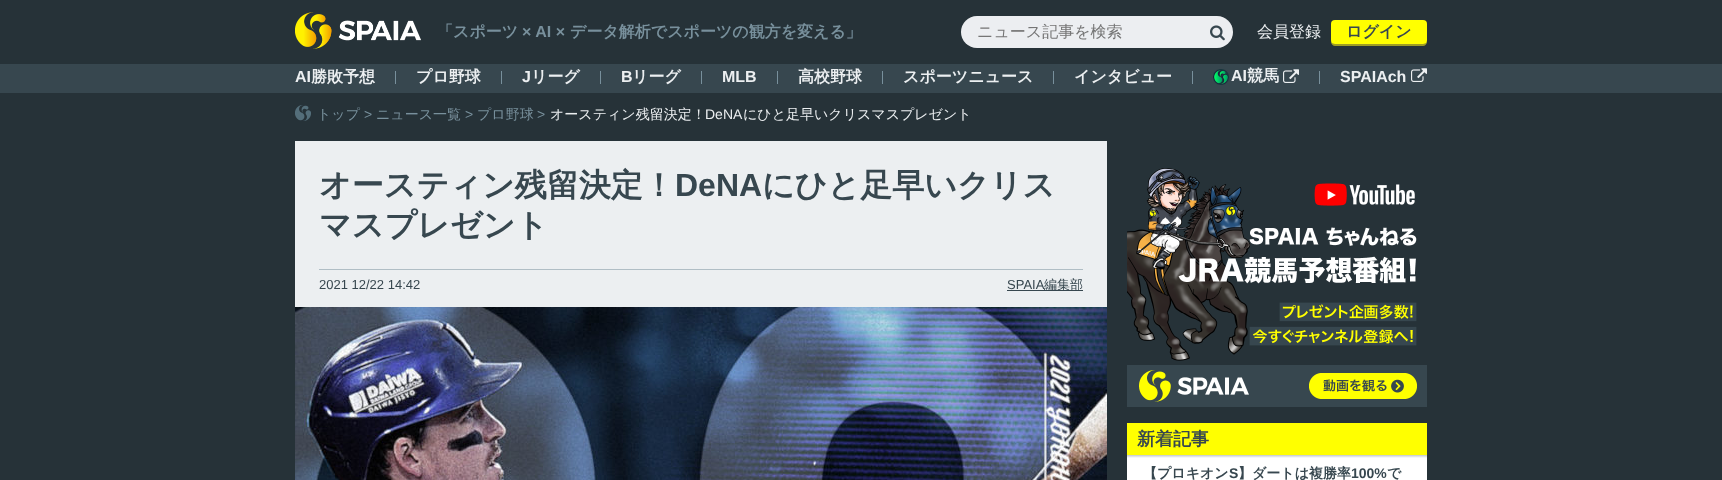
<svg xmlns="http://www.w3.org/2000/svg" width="1722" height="480">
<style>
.a{font:bold 16px WenQuanYi Zen Hei;fill:#78909c}
.b{font:bold 16px Liberation Sans;fill:#78909c}
.c{font:500 16px WenQuanYi Zen Hei;fill:#757575}
.d{font:500 16px WenQuanYi Zen Hei;fill:#eceff1}
.e{font:bold 16px WenQuanYi Zen Hei;fill:#37474f}
.f{font:bold 16px Liberation Sans;fill:#eceff1}
.g{font:bold 16px WenQuanYi Zen Hei;fill:#eceff1}
.h{font:500 14px WenQuanYi Zen Hei;fill:#78909c}
.i{font:14px Liberation Sans;fill:#78909c}
.j{font:500 14px WenQuanYi Zen Hei;fill:#eceff1}
.k{font:14px Liberation Sans;fill:#eceff1}
.l{font:bold 32px WenQuanYi Zen Hei;fill:#37474f}
.m{font:bold 32px Liberation Sans;fill:#37474f}
.n{font:13px Liberation Sans;fill:#37474f}
.o{font:500 13px WenQuanYi Zen Hei;fill:#37474f}
.p{font:bold 18px WenQuanYi Zen Hei;fill:#37474f}
.q{font:bold 14px WenQuanYi Zen Hei;fill:#37474f}
.r{font:bold 14px Liberation Sans;fill:#37474f}
</style>
<defs>
<linearGradient id="g1" gradientUnits="userSpaceOnUse" x1="1277" y1="458" x2="1277" y2="455"><stop offset="0" stop-color="#fff"/><stop offset="1" stop-color="#c3c8ca"/></linearGradient>
</defs>
<rect width="100%" height="100%" fill="#263238"/>
<path fill="#37474f" d="M0 64h1722v29H0z"/>
<image href="1.png" x="295" y="12" width="126" height="37"/>
<rect fill="#eceef1" x="961" y="16" width="272" height="32" rx="16"/>
<image href="2.png" x="1210" y="25" width="15" height="16"/>
<path fill="#9e9d24" d="M1331 40v2c0 2 2 4 4 4h88c2 0 4-2 4-4v-2c0 2-2 4-4 4h-88c-2 0-4-2-4-4z"/>
<rect fill="#ff0" x="1331" y="20" width="96" height="24" rx="4"/>
<path fill="#78909c" d="M395 71h1v13H395z"/>
<path fill="#78909c" d="M501 71h1v13H501z"/>
<path fill="#78909c" d="M600 71h1v13H600z"/>
<path fill="#78909c" d="M701 71h1v13H701z"/>
<path fill="#78909c" d="M777 71h1v13H777z"/>
<path fill="#78909c" d="M882 71h1v13H882z"/>
<path fill="#78909c" d="M1053 71h1v13H1053z"/>
<path fill="#78909c" d="M1192 71h1v13H1192z"/>
<image href="3.png" x="1213" y="69" width="16" height="16"/>
<image href="4.png" x="1283" y="69" width="16" height="14"/>
<path fill="#78909c" d="M1319 71h1v13H1319z"/>
<image href="4.png" x="1411" y="68" width="16" height="14"/>
<image href="5.png" x="295" y="105" width="16" height="16"/>
<path fill="#eceff1" d="M295 141h812v166H295z"/>
<path fill="#b0bec5" d="M319 269h764v1H319z"/>
<path fill="#37474f" d="M1007 290h76v1H1007z"/>
<image href="6.png" x="295" y="307" width="812" height="173"/>
<image href="7.png" x="1127" y="168" width="300" height="239"/>
<path fill="#fff" d="M1127 458h300v22H1127z"/>
<path fill="#ff0" d="M1127 423h300v32H1127z"/>
<path fill="url(#g1)" d="M1127 455h300v3H1127z"/>
<text class="a" x="437" y="37">「スポーツ</text>
<text class="b" x="522" y="37">× AI ×</text>
<text class="a" x="570" y="37">データ解析でスポーツの観方を変える」</text>
<text class="c" x="977" y="37">ニュース記事を検索</text>
<text class="d" x="1257" y="37">会員登録</text>
<text class="e" x="1346" y="37">ログイン</text>
<text class="f" x="295" y="82">AI</text>
<text class="g" x="311" y="82">勝敗予想</text>
<text class="g" x="416" y="82">プロ野球</text>
<text class="f" x="522" y="82">J</text>
<text class="g" x="531" y="82">リーグ</text>
<text class="f" x="621" y="82">B</text>
<text class="g" x="632" y="82">リーグ</text>
<text class="f" x="722" y="82">MLB</text>
<text class="g" x="798" y="82">高校野球</text>
<text class="g" x="903" y="82">スポーツニュース</text>
<text class="g" x="1074" y="82">インタビュー</text>
<text class="f" x="1231" y="81">AI</text>
<text class="g" x="1247" y="81">競馬</text>
<text class="f" x="1340" y="82">SPAIAch</text>
<text class="h" x="317" y="119">トップ</text>
<text class="i" x="364" y="119">&gt;</text>
<text class="h" x="376" y="119">ニュース一覧</text>
<text class="i" x="465" y="119">&gt;</text>
<text class="h" x="477" y="119">プロ野球</text>
<text class="i" x="537" y="119">&gt;</text>
<text class="j" x="550" y="119">オースティン残留決定！</text>
<text class="k" x="705" y="119">DeNA</text>
<text class="j" x="743" y="119">にひと足早いクリスマスプレゼント</text>
<text class="l" x="319" y="196">オースティン残留決定！</text>
<text class="m" x="675" y="196">DeNA</text>
<text class="l" x="762" y="196">にひと足早いクリス</text>
<text class="l" x="319" y="236">マスプレゼント</text>
<text class="n" x="319" y="289">2021 12/22 14:42</text>
<text class="n" x="1007" y="289">SPAIA</text>
<text class="o" x="1044" y="289">編集部</text>
<text class="p" x="1137" y="445">新着記事</text>
<text class="q" x="1143" y="478">【プロキオン</text>
<text class="r" x="1229" y="478">S</text>
<text class="q" x="1238" y="478">】ダートは複勝率</text>
<text class="r" x="1351" y="478">100%</text>
<text class="q" x="1387" y="478">で</text>
</svg>
